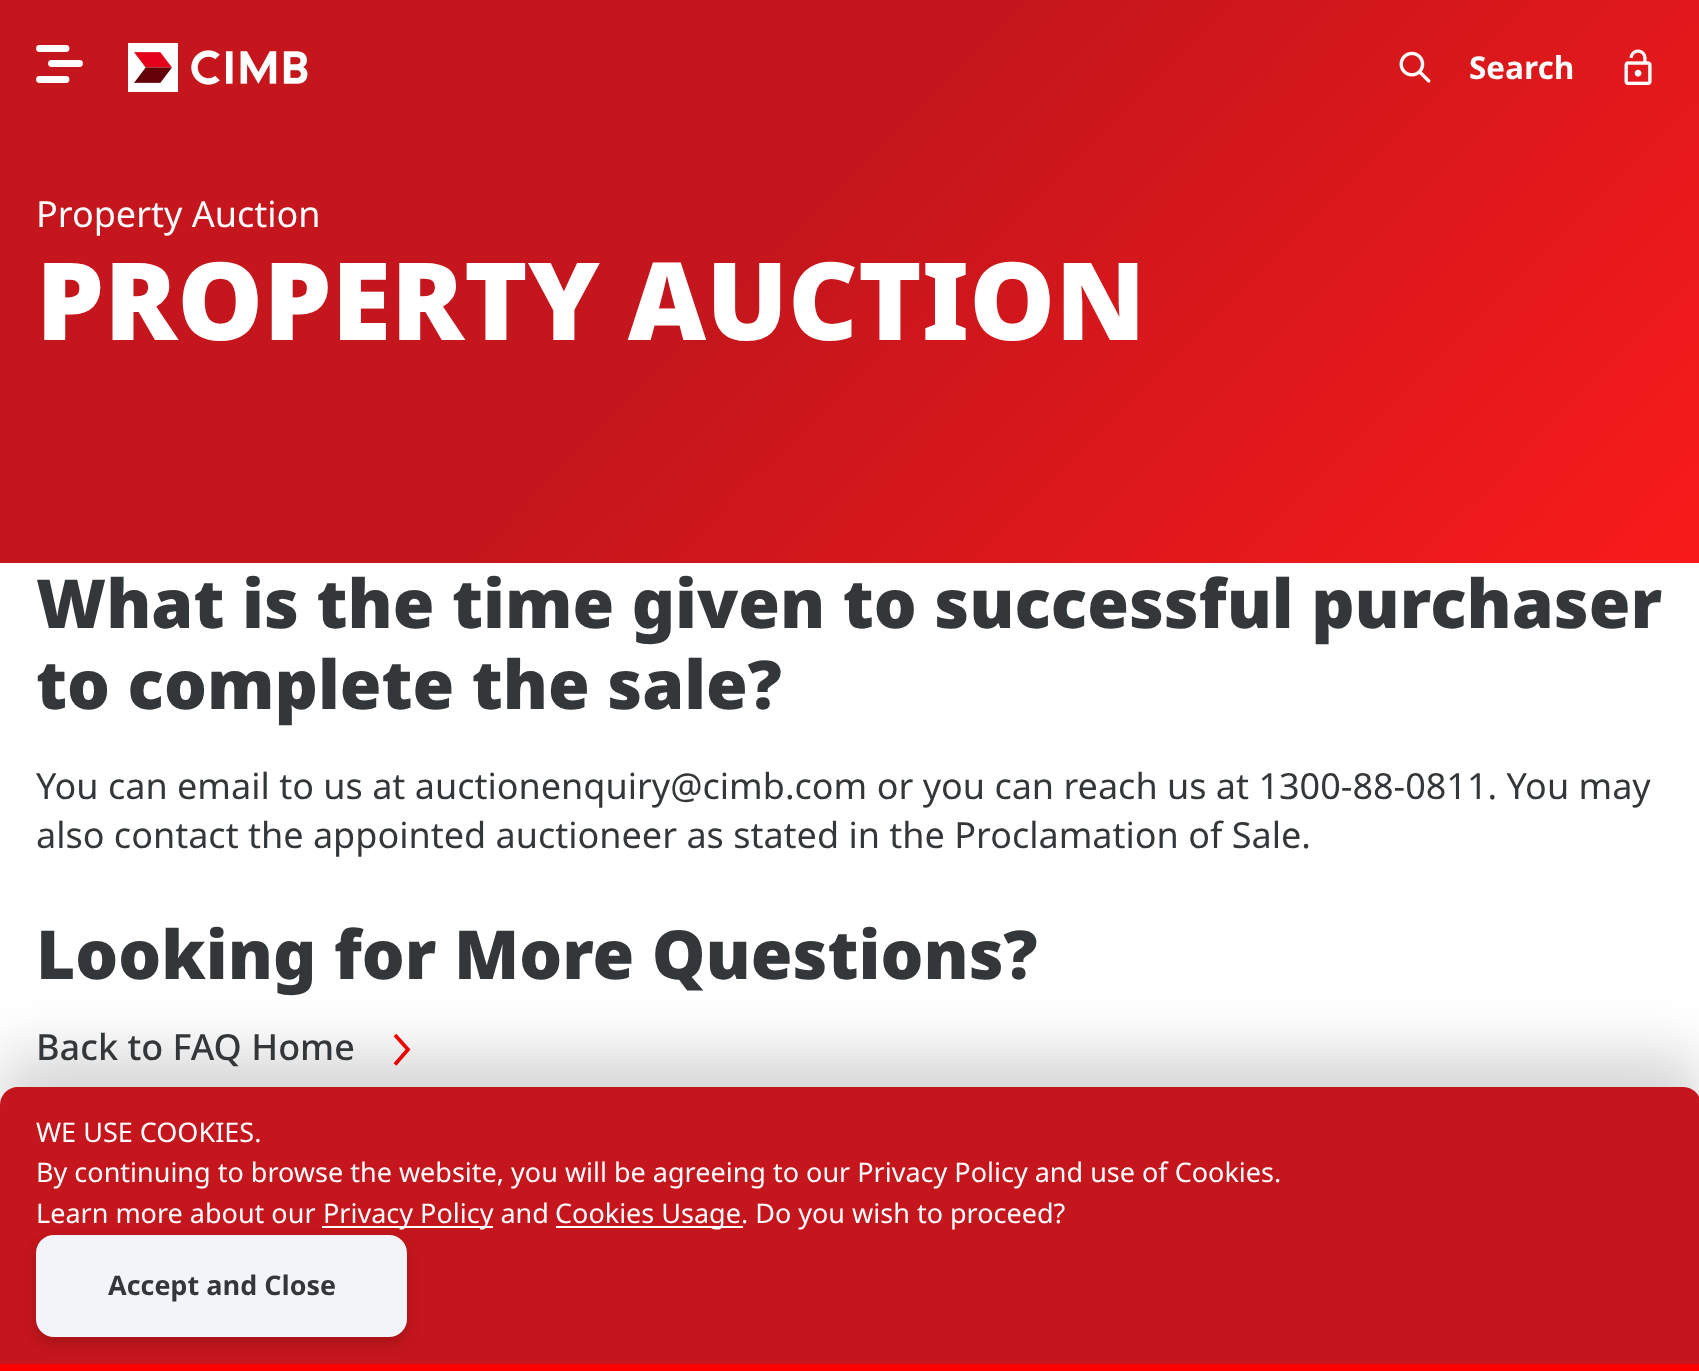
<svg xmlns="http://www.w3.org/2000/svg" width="1699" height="1371">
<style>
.a{font:bold 31.5px Noto Sans;fill:#fff}
.b{font:36px Noto Sans;fill:#fff}
.c{font:900 108px Noto Sans;fill:#fff}
.d{font:900 67.5px Noto Sans;fill:#333739}
.e{font:36px Noto Sans;fill:#333739}
.f{font:500 36px Noto Sans;fill:#333739}
.g{font:27px Noto Sans;fill:#fff}
.h{font:bold 27px Noto Sans;fill:#333739}
</style>
<defs>
<linearGradient id="g1" gradientUnits="userSpaceOnUse" x1="1473" y1="904" x2="285" y2="-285"><stop offset="0" stop-color="#fe1b1b"/><stop offset="0.57" stop-color="#c4161c"/></linearGradient>
</defs>
<rect width="100%" height="100%" fill="#fff"/>
<path fill="url(#g1)" d="M0 0h1699v563H0z"/>
<path fill="none" stroke="#fff" stroke-width="6.8" stroke-linecap="round" d="M51.5 63.5h28m-13.5 16h-26.5m26.5-31h-26.5"/>
<image href="1.png" x="128" y="43" width="180" height="49"/>
<image href="2.png" x="1399" y="51" width="32" height="32"/>
<image href="3.png" x="1624" y="49" width="28" height="36"/>
<path fill="none" stroke="#f00" stroke-width="3.7" d="M395 1064.5l13-15l-13-14.5"/>
<rect fill="#00000029" filter="blur(28px)" y="1053" width="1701" height="286" rx="18"/>
<path fill="#c4161c" d="M18 1087h1665c10 0 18 8 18 18v259h-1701v-259c0-10 8-18 18-18z"/>
<path fill="#f00" d="M0 1364h1699v7H0z"/>
<path fill="#fff" d="M322 1226h171v2H322z"/>
<path fill="#fff" d="M556 1226h187v2H556z"/>
<rect fill="#00000029" filter="blur(7px)" x="36" y="1242" width="371" height="101" rx="18"/>
<rect fill="#f3f4fa" x="36" y="1235" width="371" height="102" rx="18"/>
<text class="a" x="1469" y="79">Search</text>
<text class="b" x="36" y="227">Property Auction</text>
<text class="c" x="36" y="340">PROPERTY AUCTION</text>
<text class="d" x="36" y="628">What is the time given to successful purchaser</text>
<text class="d" x="36" y="709">to complete the sale?</text>
<text class="e" x="36" y="799">You can email to us at auctionenquiry@cimb.com or you can reach us at 1300-88-0811. You may</text>
<text class="e" x="36" y="848">also contact the appointed auctioneer as stated in the Proclamation of Sale.</text>
<text class="d" x="36" y="979">Looking for More Questions?</text>
<text class="f" x="36" y="1060">Back to FAQ Home</text>
<text class="g" x="36" y="1142">WE USE COOKIES.</text>
<text class="g" x="36" y="1182">By continuing to browse the website, you will be agreeing to our Privacy Policy and use of Cookies.</text>
<text class="g" x="36" y="1223">Learn more about our</text>
<text class="g" x="323" y="1223">Privacy Policy and</text>
<text class="g" x="555" y="1223">Cookies Usage. Do you wish to proceed?</text>
<text class="h" x="108" y="1295">Accept and Close</text>
</svg>
